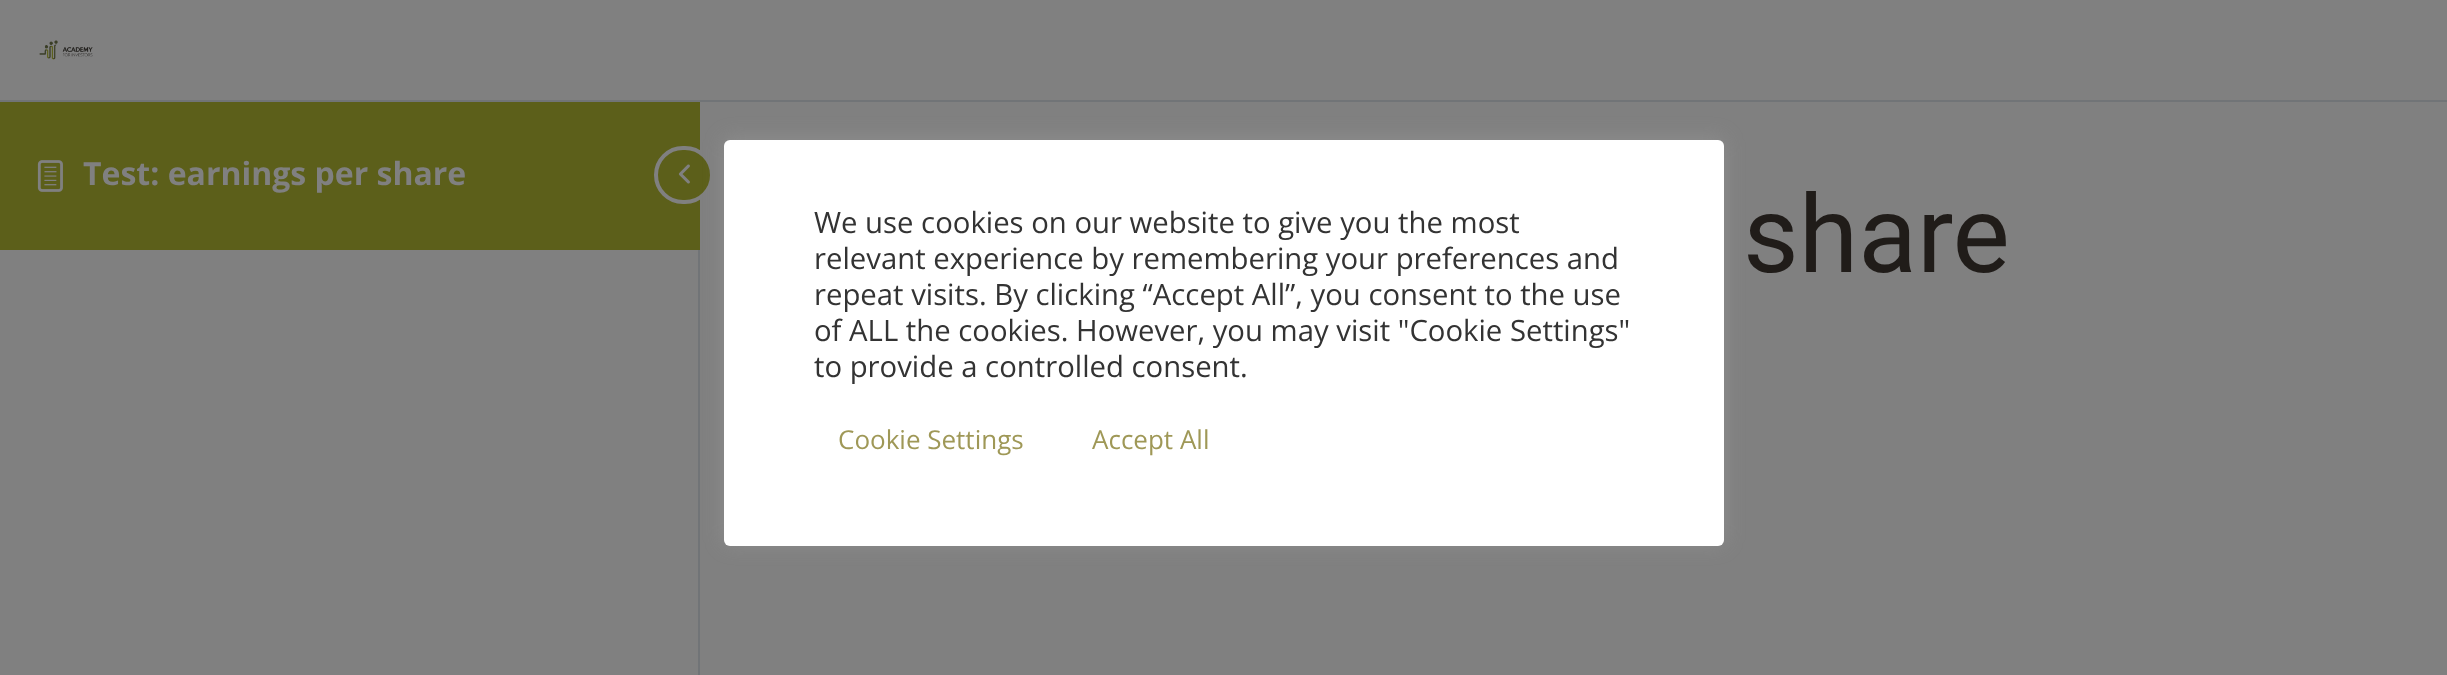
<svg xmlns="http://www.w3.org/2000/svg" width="2447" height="675">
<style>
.a{font:bold 32px Open Sans;fill:#808080}
.b{font:108px Roboto;fill:#201c19}
.c{font:29.3px Open Sans;fill:#333}
.d{font:26px Open Sans;fill:#9f9857}
</style>
<rect width="100%" height="100%" fill="#808080"/>
<path fill="#717477" d="M698 250h2v425H698z"/>
<path fill="#5c5f1a" d="M0 102h700v148H0z"/>
<image href="1.png" x="37" y="160" width="26" height="32"/>
<rect fill="#5c5f1a" stroke="#808080" stroke-width="4" x="656" y="148" width="56" height="54" rx="27"/>
<image href="2.png" x="678" y="164" width="12" height="20"/>
<path fill="#717477" d="M0 100h2447v2H0z"/>
<image href="3.png" x="39" y="40" width="54" height="20"/>
<rect fill="#acabab4d" filter="blur(10px)" x="724" y="138" width="1000" height="406" rx="6"/>
<rect fill="#fff" x="724" y="140" width="1000" height="406" rx="6"/>
<text class="a" x="83" y="185">Test: earnings per share</text>
<text class="b" x="1743" y="272">share</text>
<text class="c" x="814" y="233">We use cookies on our website to give you the most</text>
<text class="c" x="814" y="269">relevant experience by remembering your preferences and</text>
<text class="c" x="814" y="305">repeat visits. By clicking “Accept All”, you consent to the use</text>
<text class="c" x="814" y="341">of ALL the cookies. However, you may visit "Cookie Settings"</text>
<text class="c" x="814" y="377">to provide a controlled consent.</text>
<text class="d" x="838" y="449">Cookie Settings</text>
<text class="d" x="1092" y="449">Accept All</text>
</svg>
